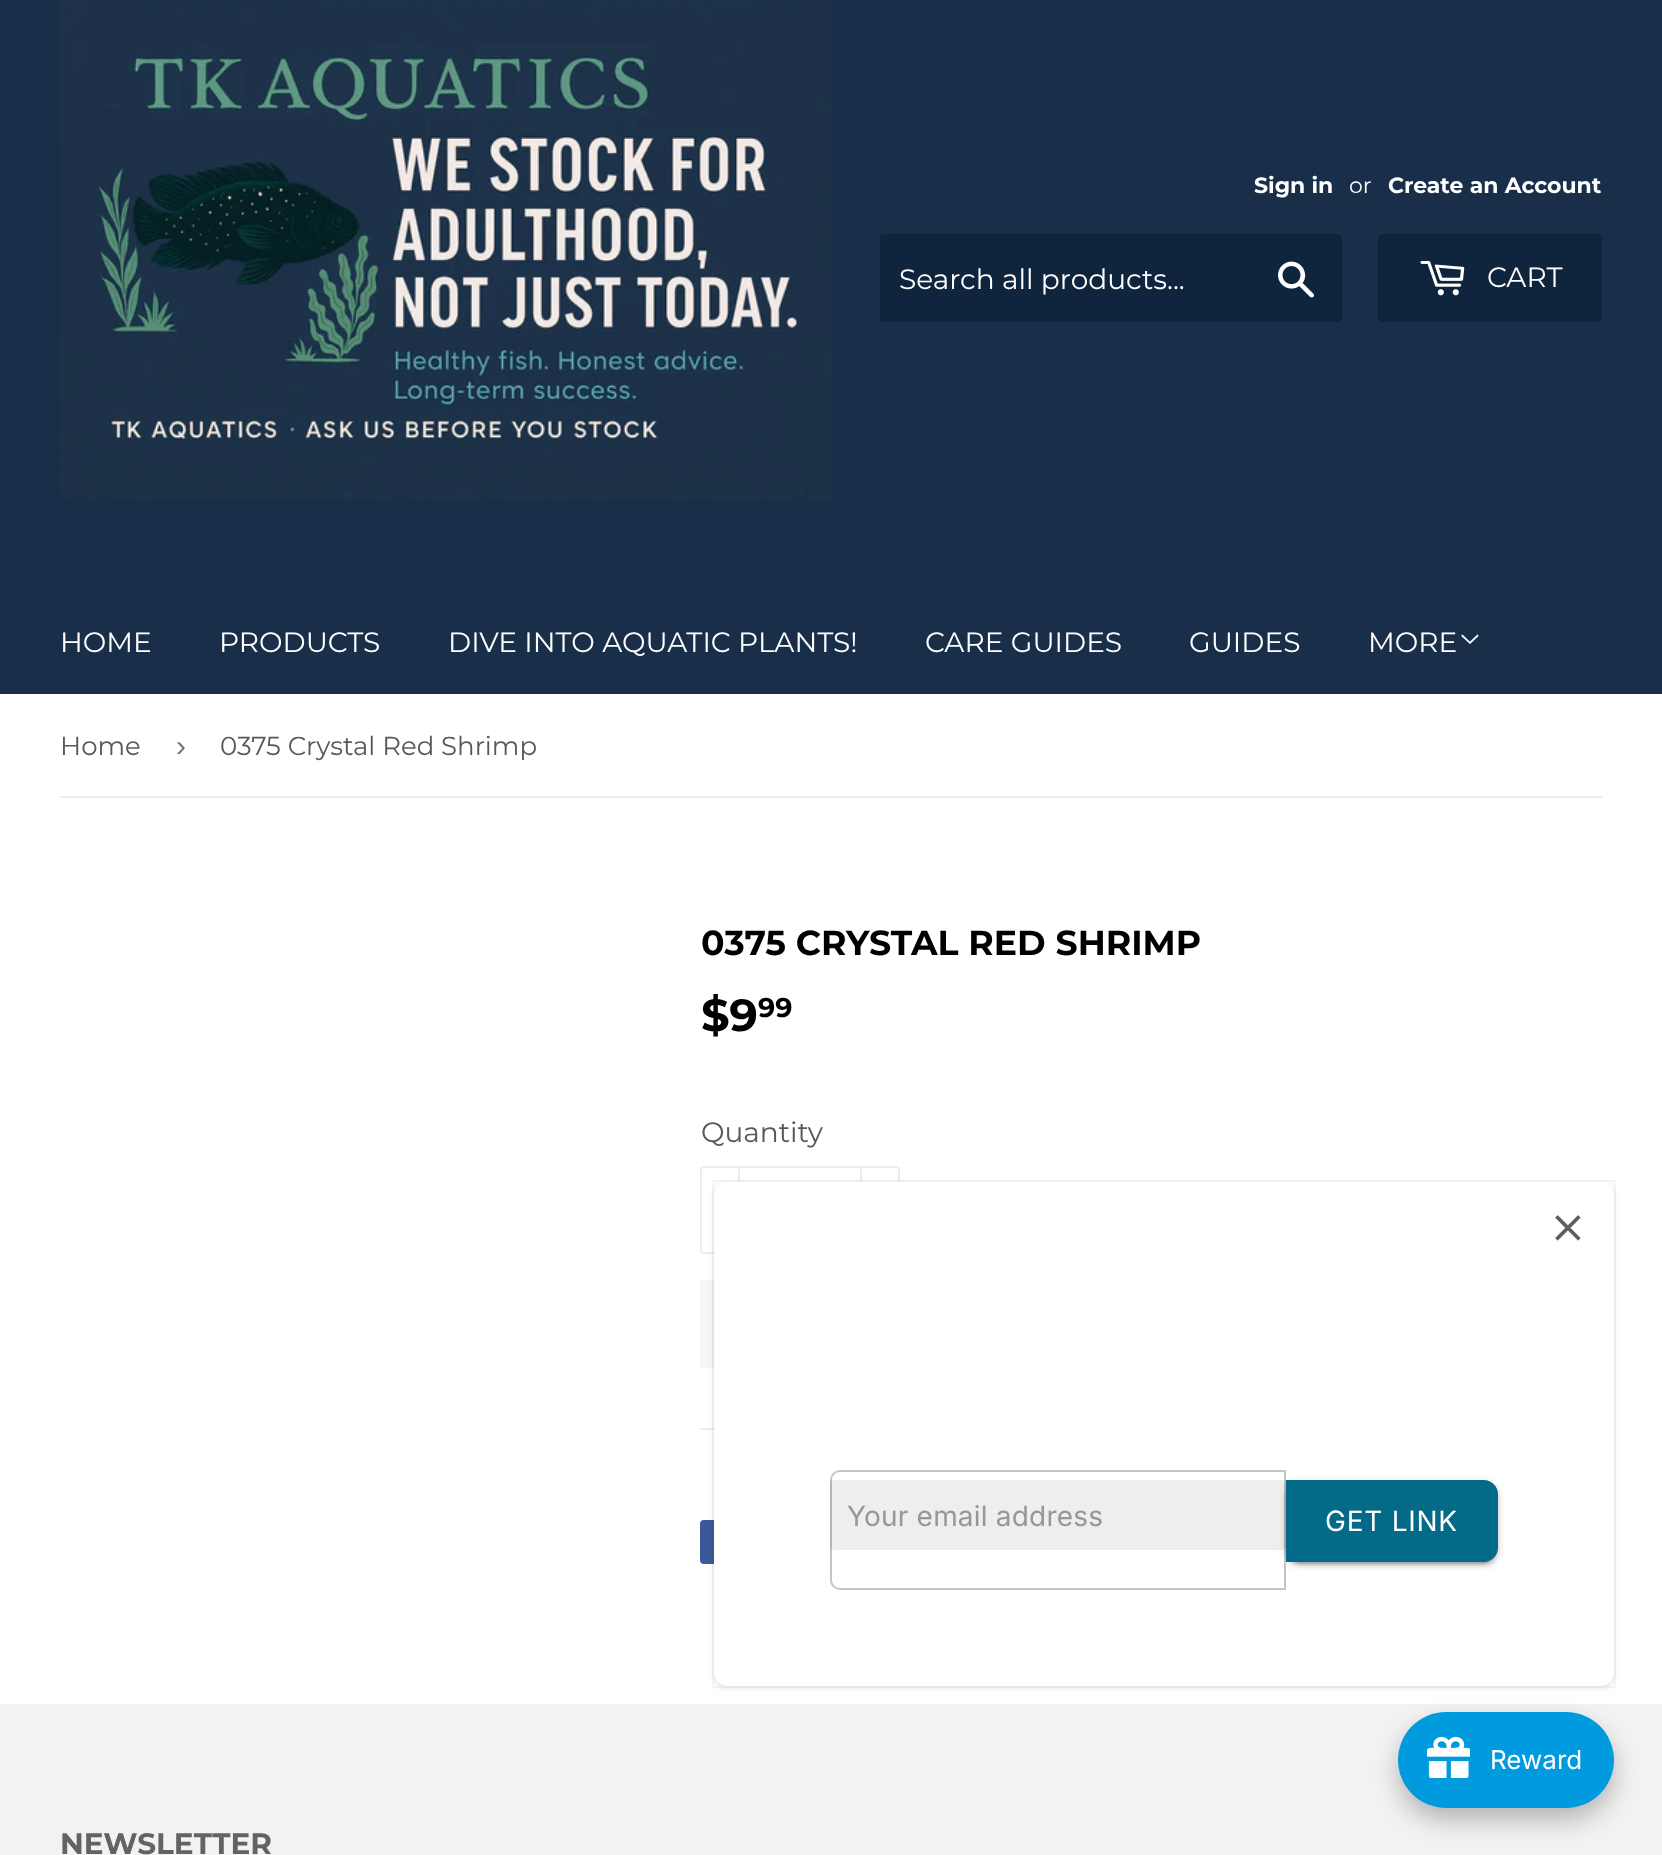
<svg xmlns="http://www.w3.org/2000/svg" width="1662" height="1855">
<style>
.a{font:bold 22px Montserrat;fill:#fff}
.b{font:22px Montserrat;fill:#fff}
.c{font:28px Montserrat;fill:#fff}
.d{font:26px Montserrat;fill:#585858}
.e{font:30px Liberation Sans;fill:#767676}
.f{font:bold 34.7px Montserrat;fill:#000}
.g{font:bold 45px Montserrat;fill:#000}
.h{font:bold 27px Montserrat;fill:#000}
.i{font:28px Montserrat;fill:#585858}
.j{font:28px Inter;letter-spacing:0.2px;fill:#979797}
.k{font:28px Inter;letter-spacing:0.75px;fill:#fff}
.l{font:26px Inter;fill:#fff}
.m{font:bold 29.5px Montserrat;fill:#636363}
</style>
<rect width="100%" height="100%" fill="#fff"/>
<path fill="#182e49" d="M0 0h1662v694H0z"/>
<image href="1.png" x="60" y="0" width="772" height="500"/>
<rect fill="#0f243d" x="880" y="234" width="462" height="88" rx="4"/>
<image href="2.png" x="1278" y="261" width="36" height="37"/>
<rect fill="#0f243d" x="1378" y="234" width="224" height="88" rx="4"/>
<image href="3.png" x="1420" y="261" width="45" height="35"/>
<image href="4.png" x="1461" y="634" width="18" height="10"/>
<path fill="#ececec" d="M60 796h1542v2H60z"/>
<rect fill="none" stroke="#ececec" stroke-width="2" x="701" y="1167" width="198" height="86" rx="3"/>
<path fill="#ececec" d="M738 1166h2v16H738z"/>
<path fill="#ececec" d="M860 1166h2v16H860z"/>
<rect fill="#f6f6f6" x="700" y="1280" width="302" height="88" rx="4"/>
<path fill="#ececec" d="M700 1428h14v2H700z"/>
<rect fill="#3b5998" x="700" y="1520" width="148" height="44" rx="4"/>
<rect fill="#3f3f4426" filter="blur(3px)" x="714" y="1184" width="900" height="504" rx="14"/>
<path fill="none" stroke="#3f3f440d" stroke-width="2" d="M713 1181h902v506H713z"/>
<rect fill="#fff" x="714" y="1182" width="900" height="504" rx="14"/>
<image href="5.png" x="1555" y="1215" width="26" height="26"/>
<rect fill="#eee" stroke="#ececec" stroke-width="2" x="831" y="1481" width="454" height="68" rx="3"/>
<path fill="none" stroke="#0000003b" stroke-width="2" d="M840 1471h445v118h-445c-5 0-9-4-9-9v-100c0-5 4-9 9-9z"/>
<rect fill="#0000001f" filter="blur(5px)" x="1286" y="1482" width="212" height="82" rx="14"/>
<rect fill="#00000024" filter="blur(2px)" x="1286" y="1484" width="212" height="82" rx="14"/>
<rect fill="#00000033" filter="blur(1px)" x="1290" y="1490" width="204" height="74" rx="10"/>
<path fill="#036b87" d="M1286 1480h198c7.5 0 14 6.5 14 14v54c0 7.5-6.5 14-14 14h-198z"/>
<path fill="#f2f2f2" d="M0 1704h1662v151H0z"/>
<rect fill="#00000040" filter="blur(12px)" x="1398" y="1724" width="216" height="96" rx="48"/>
<rect fill="#009bdf" x="1398" y="1712" width="216" height="96" rx="48"/>
<image href="6.png" x="1427" y="1736" width="43" height="42"/>
<text class="a" x="1254" y="193">Sign in</text>
<text class="b" x="1349" y="193">or</text>
<text class="a" x="1388" y="193">Create an Account</text>
<text class="c" x="899" y="289">Search all products...</text>
<text class="c" x="1487" y="287">CART</text>
<text class="c" x="60" y="652">HOME</text>
<text class="c" x="219" y="652">PRODUCTS</text>
<text class="c" x="448" y="652">DIVE INTO AQUATIC PLANTS!</text>
<text class="c" x="925" y="652">CARE GUIDES</text>
<text class="c" x="1189" y="652">GUIDES</text>
<text class="c" x="1368" y="652">MORE</text>
<text class="d" x="60" y="755">Home</text>
<text class="e" x="176" y="756">›</text>
<text class="d" x="220" y="755">0375 Crystal Red Shrimp</text>
<text class="f" x="701" y="955">0375 CRYSTAL RED SHRIMP</text>
<text class="g" x="701" y="1031">$9</text>
<text class="h" x="758" y="1017">99</text>
<text class="i" x="701" y="1142">Quantity</text>
<text class="j" x="847" y="1526">Your email address</text>
<text class="k" x="1325" y="1531">GET LINK</text>
<text class="l" x="1490" y="1769">Reward</text>
<text class="m" x="60" y="1854">NEWSLETTER</text>
</svg>
